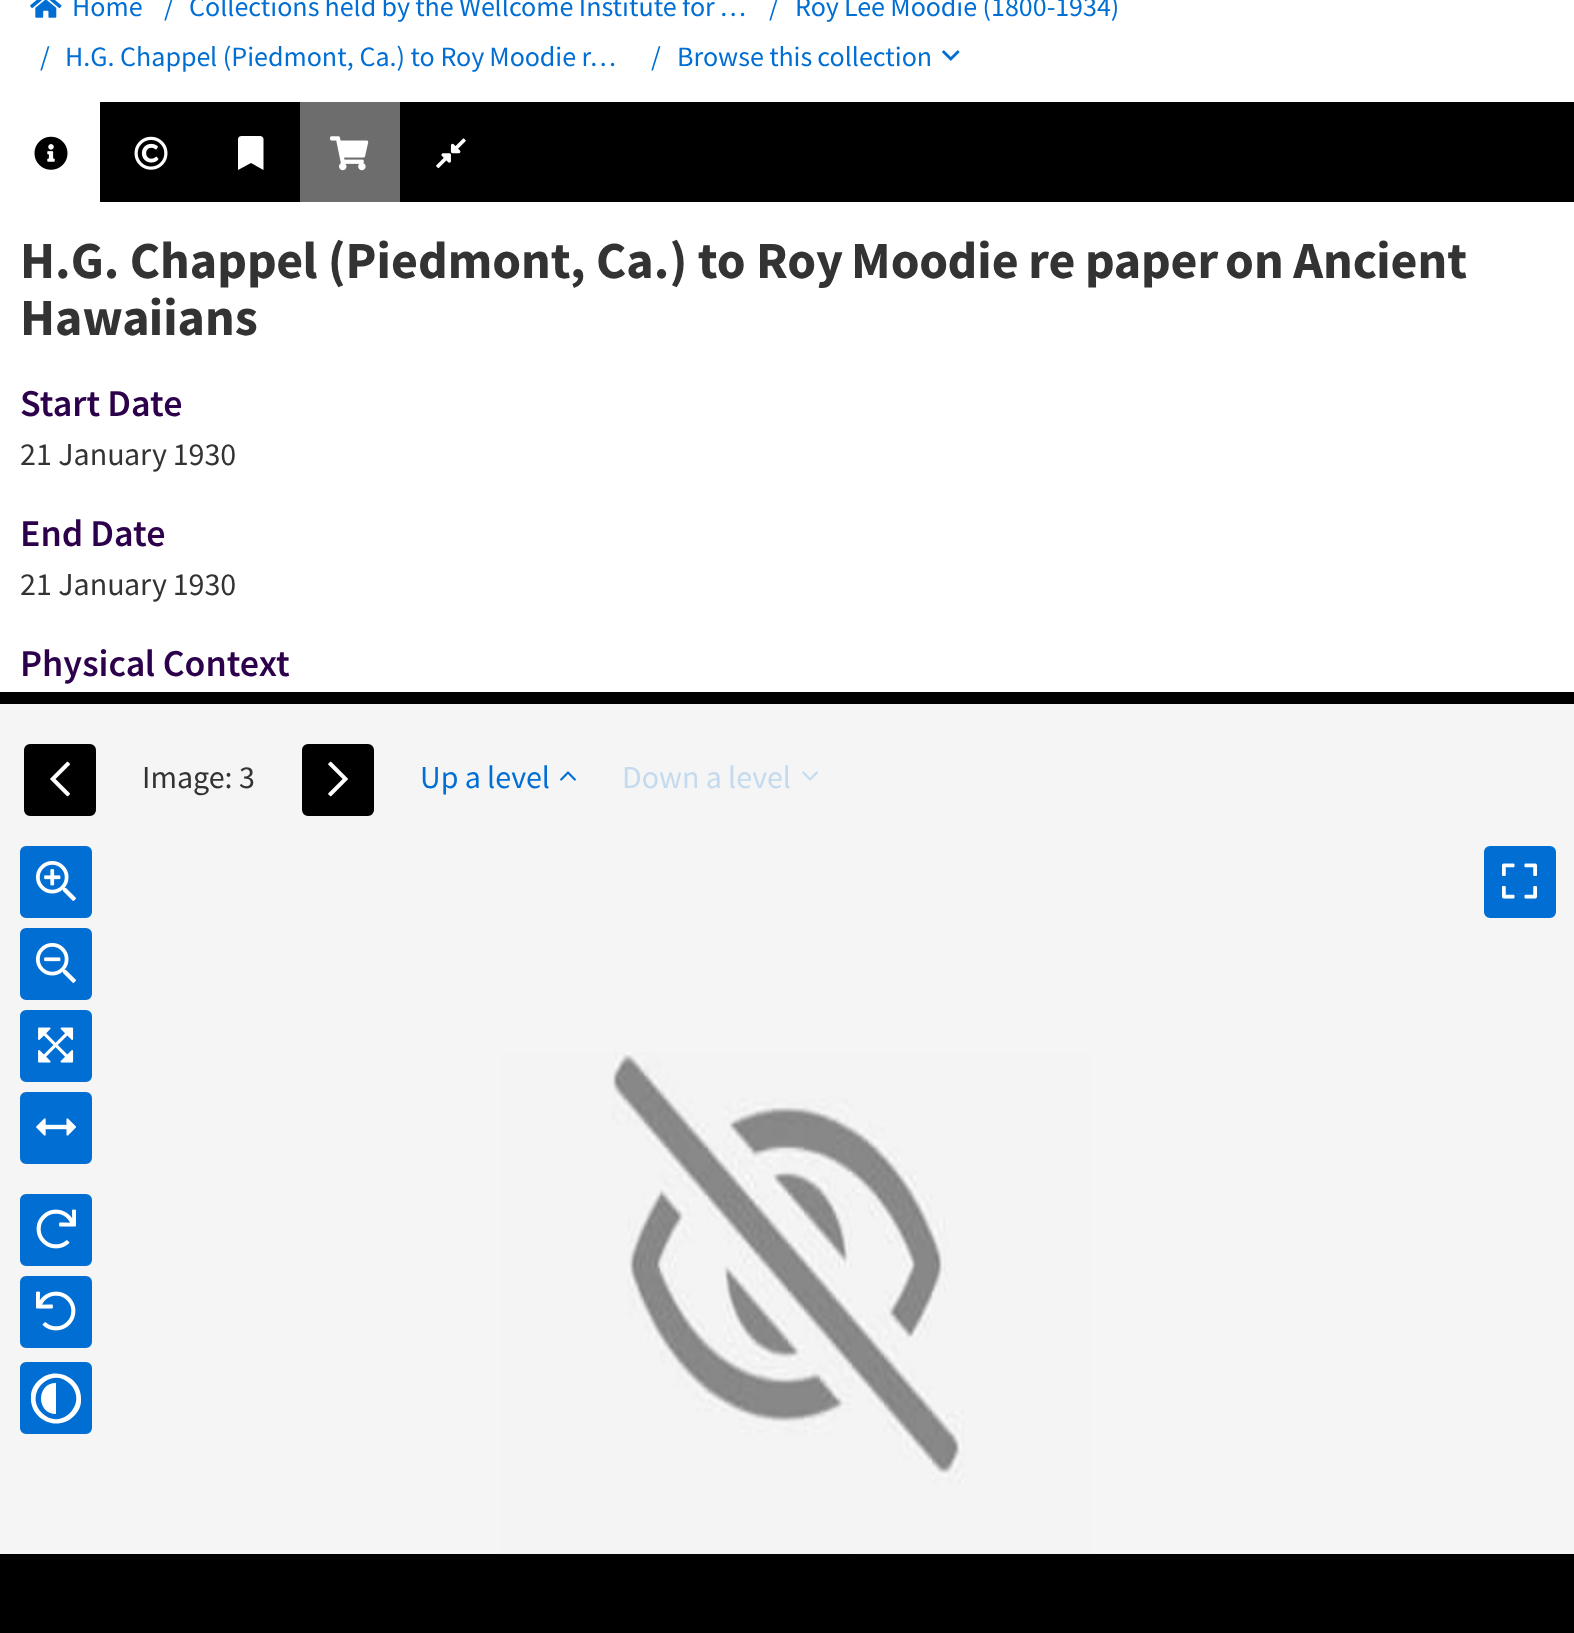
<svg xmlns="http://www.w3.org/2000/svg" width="1574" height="1633">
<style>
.a{font:28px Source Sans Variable;fill:#016ed3}
.b{font:bold 52px Source Sans Variable;fill:#333}
.c{font:600 38px Source Sans Variable;fill:#2d004b}
.d{font:32px Source Sans Variable;fill:#333}
.e{font:32px Source Sans Variable;fill:#016ed3}
.f{font:32px Source Sans Variable;fill:#c4daee}
</style>
<rect width="100%" height="100%" fill="#fff"/>
<image href="1.png" x="30" y="0" width="32" height="18"/>
<image href="2.png" x="942" y="50" width="18" height="11"/>
<path fill="#000" d="M100 102h1474v100H100z"/>
<image href="3.png" x="34" y="136" width="34" height="34"/>
<image href="4.png" x="134" y="136" width="34" height="34"/>
<path fill="#fff" d="M238 170v-31c.5-3.5 4-3 6.5-3h12.5c2.5 0 6-.5 6.5 3v31l-12.5-7z"/>
<path fill="#6d6d6d" d="M300 102h100v100H300z"/>
<image href="5.png" x="330" y="136" width="39" height="35"/>
<image href="6.png" x="436" y="138" width="30" height="31"/>
<path fill="#000" d="M0 692h1574v12H0z"/>
<path fill="#f5f5f5" d="M0 704h1574v850H0z"/>
<rect fill="#000" stroke="#000" stroke-width="4" x="26" y="746" width="68" height="68" rx="4"/>
<image href="7.png" x="50" y="761" width="20" height="36"/>
<rect fill="#000" stroke="#000" stroke-width="4" x="304" y="746" width="68" height="68" rx="4"/>
<image href="8.png" x="328" y="761" width="20" height="36"/>
<image href="9.png" x="560" y="771" width="16" height="10"/>
<image href="10.png" x="802" y="771" width="16" height="10"/>
<rect fill="#016ed3" stroke="#016ed3" stroke-width="4" x="22" y="848" width="68" height="68" rx="4"/>
<image href="11.png" x="36" y="861" width="40" height="40"/>
<rect fill="#016ed3" stroke="#016ed3" stroke-width="4" x="22" y="930" width="68" height="68" rx="4"/>
<image href="12.png" x="36" y="943" width="40" height="40"/>
<rect fill="#016ed3" stroke="#016ed3" stroke-width="4" x="22" y="1012" width="68" height="68" rx="4"/>
<image href="13.png" x="38" y="1027" width="36" height="36"/>
<rect fill="#016ed3" stroke="#016ed3" stroke-width="4" x="22" y="1094" width="68" height="68" rx="4"/>
<image href="14.png" x="36" y="1118" width="41" height="18"/>
<rect fill="#016ed3" stroke="#016ed3" stroke-width="4" x="22" y="1196" width="68" height="68" rx="4"/>
<image href="15.png" x="36" y="1209" width="40" height="40"/>
<rect fill="#016ed3" stroke="#016ed3" stroke-width="4" x="22" y="1278" width="68" height="68" rx="4"/>
<image href="16.png" x="36" y="1291" width="40" height="40"/>
<rect fill="#016ed3" stroke="#016ed3" stroke-width="4" x="22" y="1364" width="68" height="68" rx="4"/>
<path fill="#fff" d="M70 1384c-19-19-47 10-28 29c19 19 47-10 28-29zm-32-3c17-17 45-3 43 20c0 6-3 11-7 15c-17 17-45 3-43-20c0-6 3-11 7-15zm18 2v31c-20 0-20-31 0-31z"/>
<rect fill="#016ed3" stroke="#016ed3" stroke-width="4" x="1486" y="848" width="68" height="68" rx="4"/>
<image href="17.png" x="1502" y="863" width="35" height="36"/>
<image href="18.png" x="500" y="1052" width="592" height="502"/>
<path fill="#000" d="M0 1554h1574v79H0z"/>
<text class="a" x="72" y="16">Home</text>
<text class="a" x="164" y="16">/</text>
<text class="a" x="189" y="16">Collections held by the Wellcome Institute for …</text>
<text class="a" x="769" y="16">/</text>
<text class="a" x="795" y="16">Roy Lee Moodie (1800-1934)</text>
<text class="a" x="40" y="66">/</text>
<text class="a" x="65" y="66">H.G. Chappel (Piedmont, Ca.) to Roy Moodie r…</text>
<text class="a" x="651" y="66">/</text>
<text class="a" x="677" y="66">Browse this collection</text>
<text class="b" x="20" y="278">H.G. Chappel (Piedmont, Ca.) to Roy Moodie re paper on Ancient</text>
<text class="b" x="20" y="335">Hawaiians</text>
<text class="c" x="20" y="416">Start Date</text>
<text class="d" x="20" y="465">21 January 1930</text>
<text class="c" x="20" y="546">End Date</text>
<text class="d" x="20" y="595">21 January 1930</text>
<text class="c" x="20" y="676">Physical Context</text>
<text class="d" x="142" y="788">Image: 3</text>
<text class="e" x="420" y="788">Up a level</text>
<text class="f" x="622" y="788">Down a level</text>
</svg>
